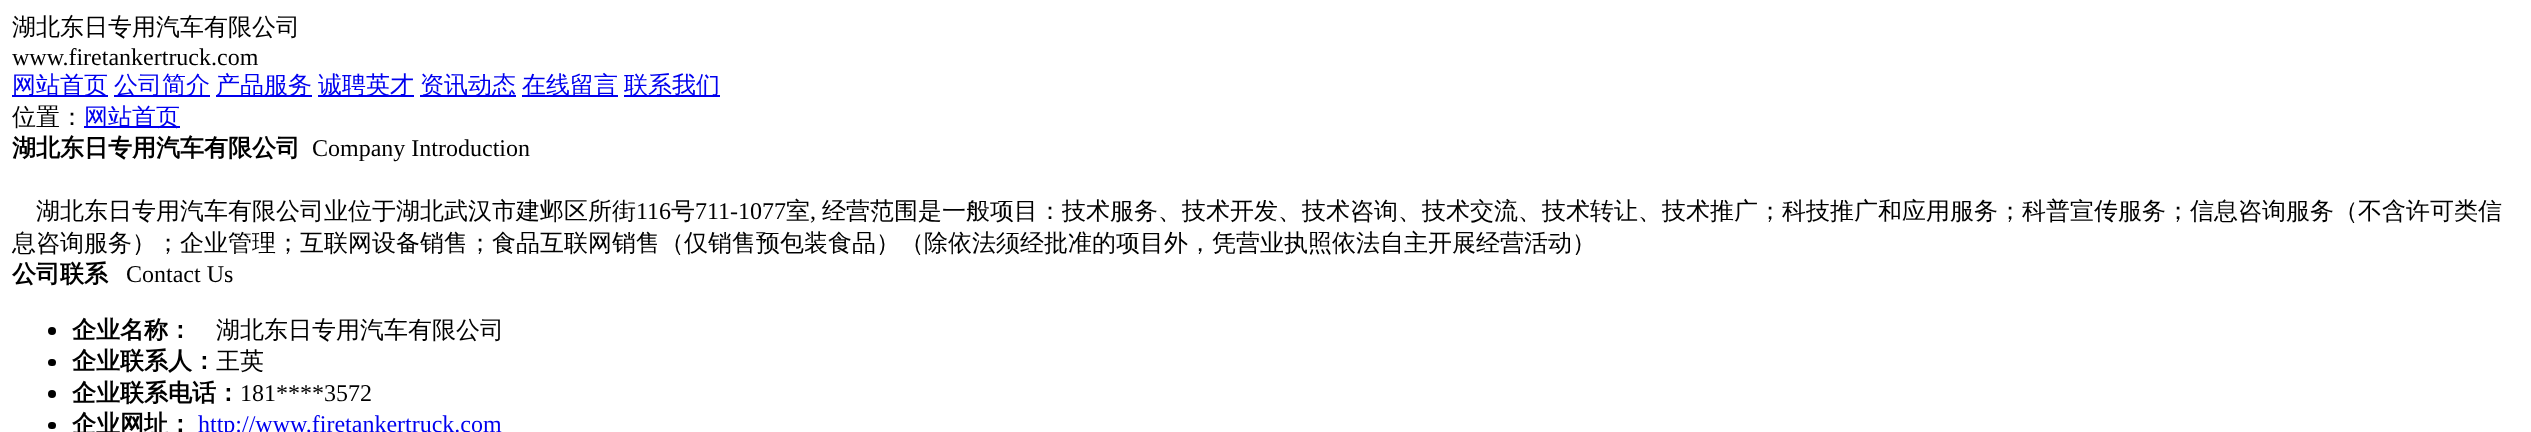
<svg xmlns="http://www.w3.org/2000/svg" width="2531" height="432">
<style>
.a{font:500 24px WenQuanYi Zen Hei;fill:#000}
.b{font:24px Liberation Serif;fill:#000}
.c{font:500 24px WenQuanYi Zen Hei;fill:#00e}
.d{font:bold 24px WenQuanYi Zen Hei;fill:#000}
.e{font:24px Liberation Serif;fill:#00e}
</style>
<rect width="100%" height="100%" fill="#fff"/>
<path fill="#00e" d="M12 95h96v2H12z"/>
<path fill="#00e" d="M114 95h96v2H114z"/>
<path fill="#00e" d="M216 95h96v2H216z"/>
<path fill="#00e" d="M318 95h96v2H318z"/>
<path fill="#00e" d="M420 95h96v2H420z"/>
<path fill="#00e" d="M522 95h96v2H522z"/>
<path fill="#00e" d="M624 95h96v2H624z"/>
<path fill="#00e" d="M84 126h96v2H84z"/>
<circle fill="#000" cx="52" cy="331" r="4"/>
<rect fill="#000" x="48" y="359" width="8" height="7" rx="3.5"/>
<circle fill="#000" cx="52" cy="394" r="4"/>
<rect fill="#000" x="48" y="422" width="8" height="7" rx="3.5"/>
<text class="a" x="12" y="35">湖北东日专用汽车有限公司</text>
<text class="b" x="12" y="65">www.firetankertruck.com</text>
<text class="c" x="12" y="93">网站首页</text>
<text class="c" x="114" y="93">公司简介</text>
<text class="c" x="216" y="93">产品服务</text>
<text class="c" x="318" y="93">诚聘英才</text>
<text class="c" x="420" y="93">资讯动态</text>
<text class="c" x="522" y="93">在线留言</text>
<text class="c" x="624" y="93">联系我们</text>
<text class="a" x="12" y="125">位置：</text>
<text class="c" x="84" y="125">网站首页</text>
<text class="d" x="12" y="156">湖北东日专用汽车有限公司</text>
<text class="b" x="312" y="156">Company Introduction</text>
<text class="a" x="36" y="219">湖北东日专用汽车有限公司业位于湖北武汉市建邺区所街</text>
<text class="b" x="636" y="219">116</text>
<text class="a" x="671" y="219">号</text>
<text class="b" x="695" y="219">711-1077</text>
<text class="a" x="786" y="219">室</text>
<text class="b" x="810" y="219">,</text>
<text class="a" x="822" y="219">经营范围是一般项目：技术服务、技术开发、技术咨询、技术交流、技术转让、技术推广；科技推广和应用服务；科普宣传服务；信息咨询服务（不含许可类信</text>
<text class="a" x="12" y="251">息咨询服务）；企业管理；互联网设备销售；食品互联网销售（仅销售预包装食品）（除依法须经批准的项目外，凭营业执照依法自主开展经营活动）</text>
<text class="d" x="12" y="282">公司联系</text>
<text class="b" x="126" y="282">Contact Us</text>
<text class="d" x="72" y="338">企业名称：</text>
<text class="a" x="216" y="338">湖北东日专用汽车有限公司</text>
<text class="d" x="72" y="369">企业联系人：</text>
<text class="a" x="216" y="369">王英</text>
<text class="d" x="72" y="401">企业联系电话：</text>
<text class="b" x="240" y="401">181****3572</text>
<text class="d" x="72" y="432">企业网址：</text>
<text class="e" x="198" y="432">http://www.firetankertruck.com</text>
</svg>
